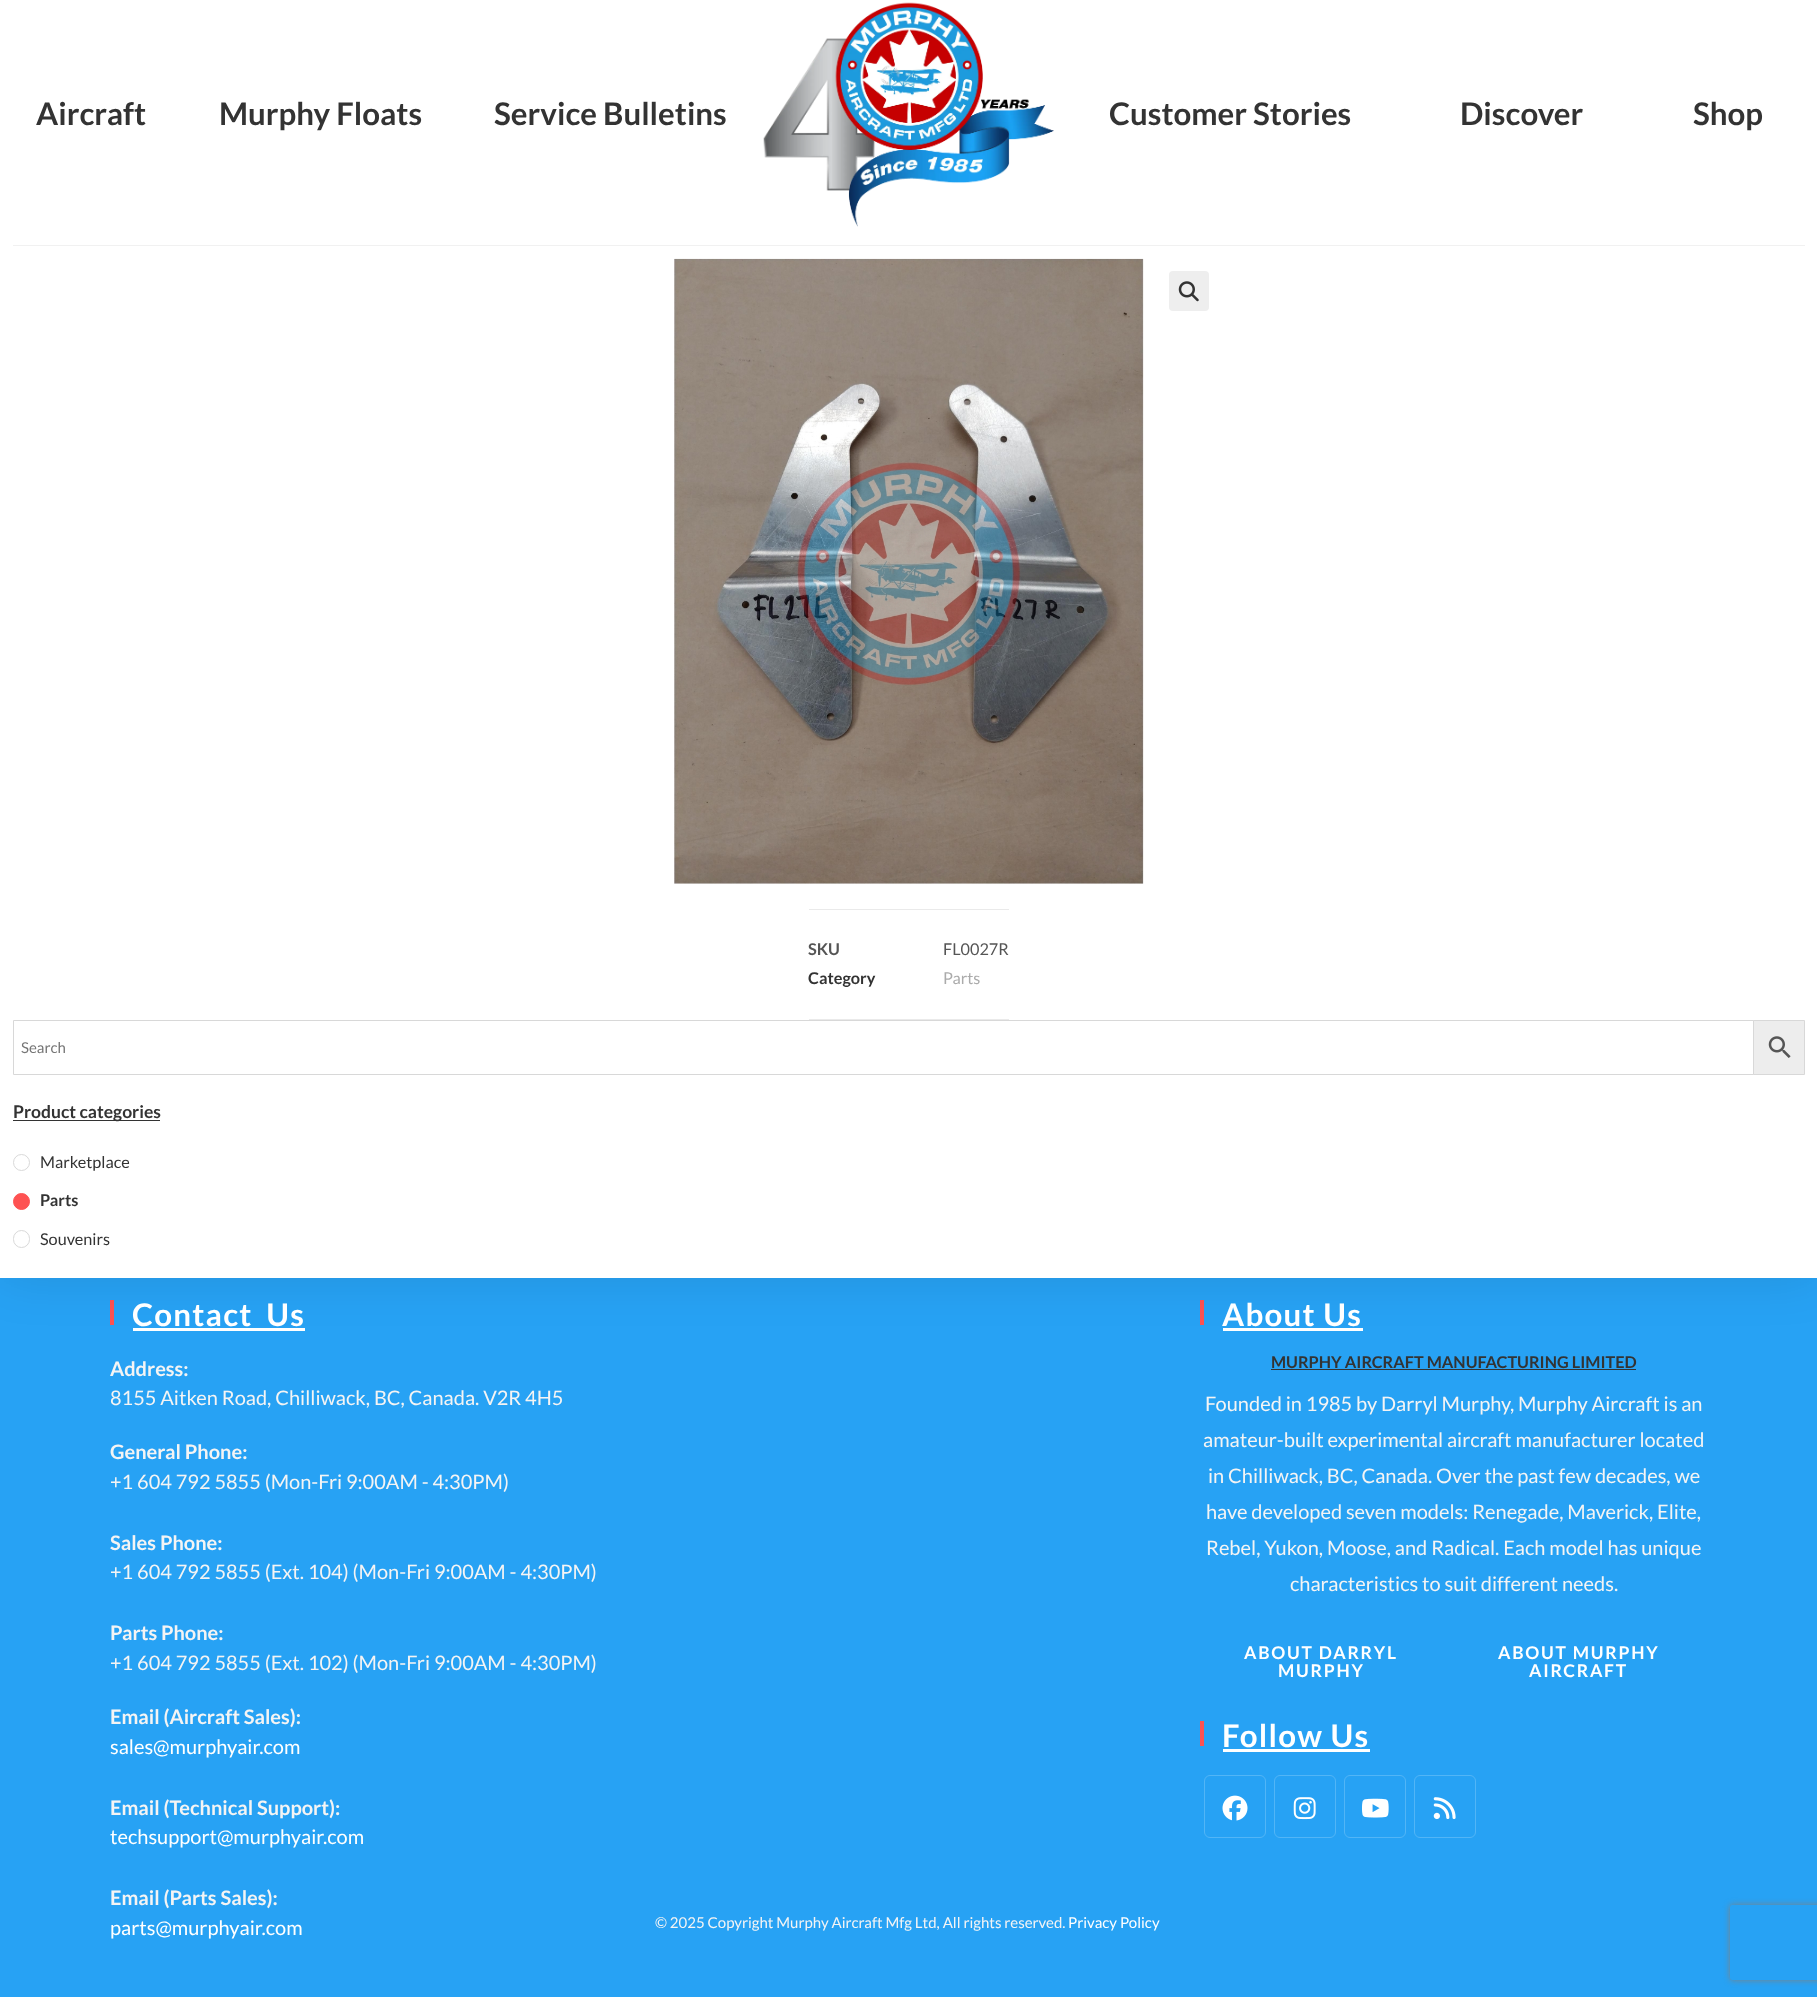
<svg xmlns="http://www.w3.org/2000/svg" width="1817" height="1997">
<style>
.a{font:bold 31.25px Lato;fill:#333}
.b{font:bold 16.25px Lato;fill:#555}
.c{font:16.25px Lato;fill:#555}
.d{font:bold 16.25px Lato;fill:#333}
.e{font:16.25px Lato;fill:#ababab}
.f{font:15px Lato;fill:#757575}
.g{font:bold 17.5px Lato;fill:#333}
.h{font:16.25px Lato;fill:#333}
.i{font:bold 31.25px Lato;letter-spacing:1.25px;fill:#fff}
.j{font:bold 20px Lato;fill:#f4f4f4}
.k{font:20px Lato;fill:#f4f4f4}
.l{font:20px Lato;fill:#fff}
.m{font:15px Lato;fill:#f4f4f4}
.n{font:15px Lato;fill:#fff}
.o{font:bold 17.5px Lato;letter-spacing:1.75px;fill:#fff}
</style>
<defs>
<clipPath id="clip1"><path d="M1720 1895h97v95h-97zm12.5 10h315c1.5 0 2.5 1 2.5 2.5v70c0 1.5-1 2.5-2.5 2.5h-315c-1.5 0-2.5-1-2.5-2.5v-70c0-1.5 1-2.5 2.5-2.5z" clip-rule="evenodd"/></clipPath>
</defs>
<rect width="100%" height="100%" fill="#27a2f4"/>
<path fill="#fe5252" d="M110 1300h4v25H110z"/>
<path fill="#fff" d="M133 1328h172v3H133z"/>
<path fill="#fe5252" d="M1200 1300h4v25H1200z"/>
<path fill="#fff" d="M1223 1328h140v3H1223z"/>
<path fill="#0000001a" filter="blur(25px)" d="M0 173h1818v1105H0z"/>
<path fill="#fff" d="M0 0h1817v1278H0z"/>
<image href="1.png" x="763" y="2" width="291" height="225"/>
<path fill="#f1f1f1" d="M13 245h1792v1H13z"/>
<image href="2.png" x="674" y="258" width="470" height="626"/>
<rect fill="#eee" x="1169" y="271" width="40" height="40" rx="4"/>
<image href="3.png" x="1178" y="281" width="21" height="21"/>
<path fill="#eaeaea" d="M809 909h200v1H809z"/>
<path fill="#eaeaea" d="M809 1019h200v1H809z"/>
<path fill="#ededed" stroke="#d8d8d8" d="M1753.5 1020.5h51v54H1753.5z"/>
<path fill="none" stroke="#d8d8d8" d="M13.5 1020.5h1740v54H13.5z"/>
<image href="4.png" x="1768" y="1036" width="23" height="22"/>
<path fill="#333" d="M13 1120h147v1H13z"/>
<circle fill="none" stroke="#d9d9d9" cx="21.5" cy="1162.5" r="8"/>
<circle fill="#fe5252" stroke="#fe5252" cx="21.5" cy="1201.5" r="8"/>
<rect fill="none" stroke="#d9d9d9" x="13.5" y="1230.5" width="16" height="17" rx="8"/>
<path fill="#333" d="M1271 1369h365v1H1271z"/>
<path fill="#fe5252" d="M1200 1721h4v25H1200z"/>
<path fill="#fff" d="M1223 1749h147v3H1223z"/>
<rect fill="none" stroke="#52b5f6" x="1204.5" y="1775.5" width="61" height="62" rx="5.5"/>
<image href="5.png" x="1222" y="1795" width="26" height="26"/>
<rect fill="none" stroke="#52b5f6" x="1274.5" y="1775.5" width="61" height="62" rx="5.5"/>
<image href="6.png" x="1293" y="1797" width="23" height="23"/>
<rect fill="none" stroke="#52b5f6" x="1344.5" y="1775.5" width="61" height="62" rx="5.5"/>
<image href="7.png" x="1362" y="1798" width="27" height="20"/>
<rect fill="none" stroke="#52b5f6" x="1414.5" y="1775.5" width="61" height="62" rx="5.5"/>
<image href="8.png" x="1433" y="1797" width="23" height="23"/>
<g clip-path="url(#clip1)">
<rect fill="#808080" filter="blur(3px)" x="1730" y="1905" width="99" height="75" rx="2.5"/>
</g>
<text class="a" x="36" y="125">Aircraft</text>
<text class="a" x="219" y="125">Murphy Floats</text>
<text class="a" x="494" y="125">Service Bulletins</text>
<text class="a" x="1109" y="125">Customer Stories</text>
<text class="a" x="1460" y="125">Discover</text>
<text class="a" x="1693" y="125">Shop</text>
<text class="b" x="808" y="955">SKU</text>
<text class="c" x="943" y="955">FL0027R</text>
<text class="d" x="808" y="984">Category</text>
<text class="e" x="943" y="984">Parts</text>
<text class="f" x="21" y="1053">Search</text>
<text class="g" x="13" y="1118">Product categories</text>
<text class="h" x="40" y="1168">Marketplace</text>
<text class="d" x="40" y="1206">Parts</text>
<text class="h" x="40" y="1245">Souvenirs</text>
<text class="i" x="132" y="1326">Contact_Us</text>
<text class="j" x="110" y="1376">Address:</text>
<text class="k" x="110" y="1405">8155 Aitken Road, Chilliwack, BC, Canada. V2R 4H5</text>
<text class="j" x="110" y="1459">General Phone:</text>
<text class="k" x="110" y="1489">+1 604 792 5855 (Mon-Fri 9:00AM - 4:30PM)</text>
<text class="j" x="110" y="1550">Sales Phone:</text>
<text class="k" x="110" y="1579">+1 604 792 5855 (Ext. 104) (Mon-Fri 9:00AM - 4:30PM)</text>
<text class="j" x="110" y="1640">Parts Phone:</text>
<text class="k" x="110" y="1670">+1 604 792 5855 (Ext. 102) (Mon-Fri 9:00AM - 4:30PM)</text>
<text class="j" x="110" y="1724">Email (Aircraft Sales):</text>
<text class="l" x="110" y="1754">sales@murphyair.com</text>
<text class="j" x="110" y="1815">Email (Technical Support):</text>
<text class="l" x="110" y="1844">techsupport@murphyair.com</text>
<text class="j" x="110" y="1905">Email (Parts Sales):</text>
<text class="l" x="110" y="1935">parts@murphyair.com</text>
<text class="m" x="655" y="1928">© 2025 Copyright Murphy Aircraft Mfg Ltd, All rights reserved.</text>
<text class="n" x="1068" y="1928">Privacy Policy</text>
<text class="i" x="1222" y="1326">About Us</text>
<text class="d" x="1271" y="1368">MURPHY AIRCRAFT MANUFACTURING LIMITED</text>
<text class="k" x="1205" y="1411">Founded in 1985 by Darryl Murphy, Murphy Aircraft is an</text>
<text class="k" x="1203" y="1447">amateur-built experimental aircraft manufacturer located</text>
<text class="k" x="1208" y="1483">in Chilliwack, BC, Canada. Over the past few decades, we</text>
<text class="k" x="1206" y="1519">have developed seven models: Renegade, Maverick, Elite,</text>
<text class="k" x="1206" y="1555">Rebel, Yukon, Moose, and Radical. Each model has unique</text>
<text class="k" x="1290" y="1591">characteristics to suit different needs.</text>
<text class="o" x="1244" y="1659">ABOUT DARRYL</text>
<text class="o" x="1278" y="1677">MURPHY</text>
<text class="o" x="1498" y="1659">ABOUT MURPHY</text>
<text class="o" x="1529" y="1677">AIRCRAFT</text>
<text class="i" x="1222" y="1747">Follow Us</text>
</svg>
